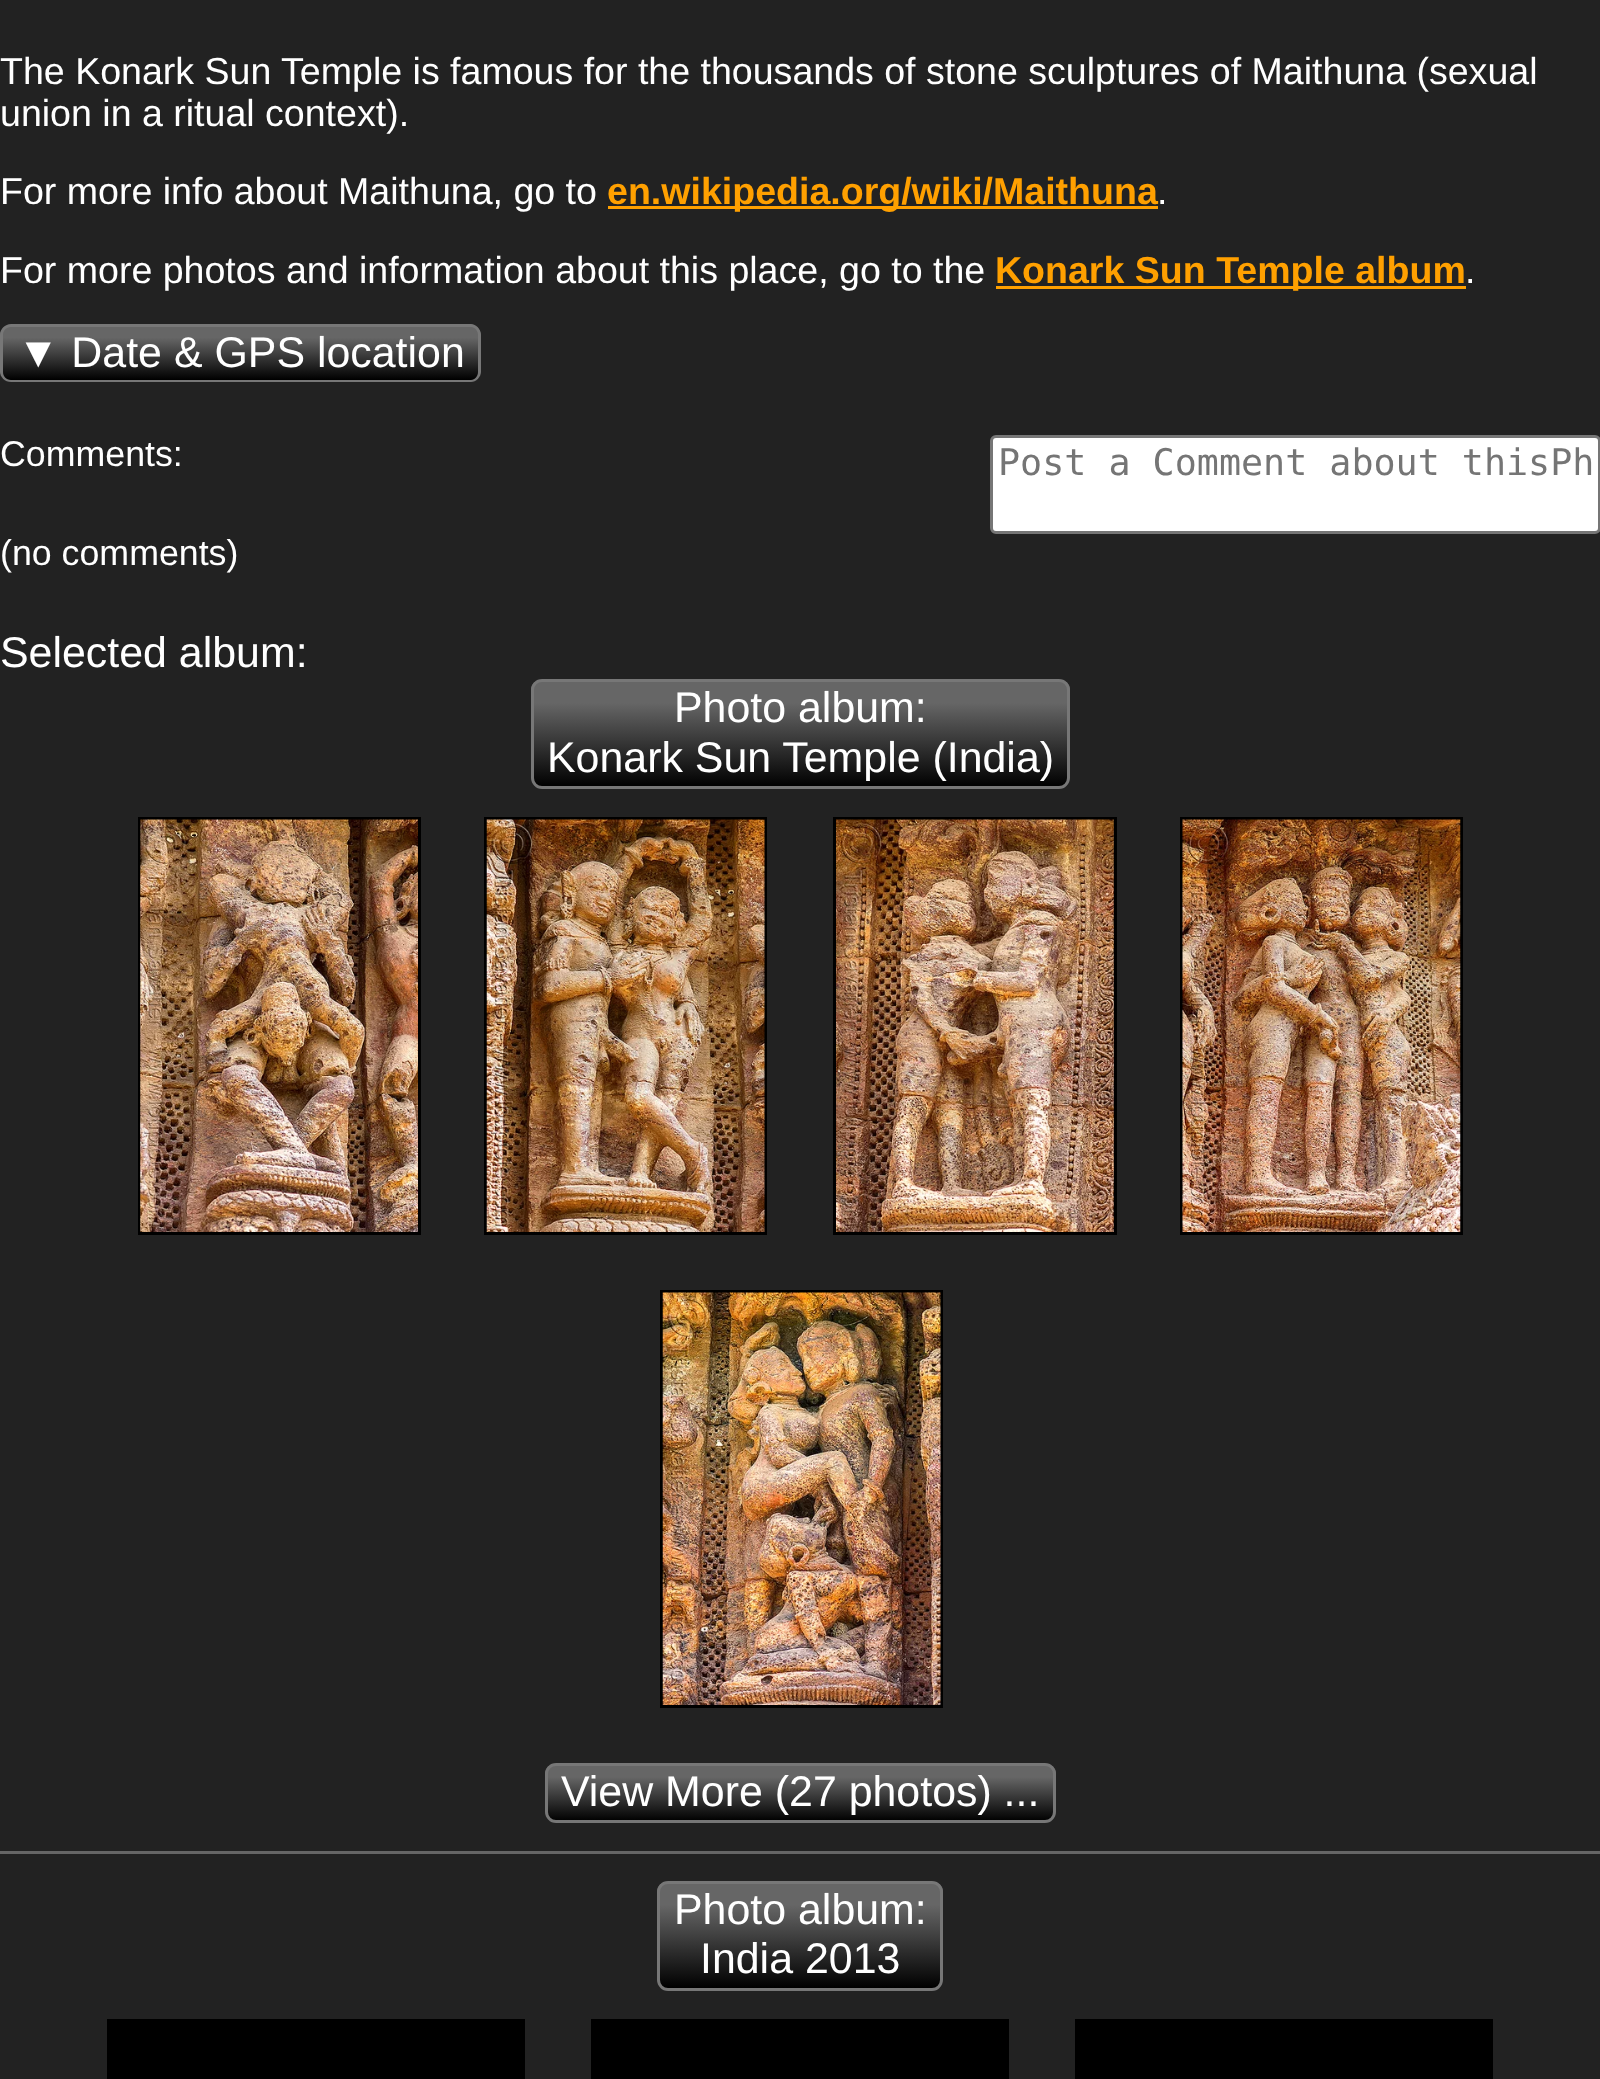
<svg xmlns="http://www.w3.org/2000/svg" width="1600" height="2079">
<style>
.a{font:37.55px Liberation Sans;fill:#fff}
.b{font:bold 37.55px Liberation Sans;fill:#ffa000}
.c{font:42.9px Liberation Sans;fill:#fff}
.d{font:35.75px Liberation Sans;fill:#fff}
.e{font:36.7px DejaVu Sans Mono;fill:#757575}
</style>
<defs>
<clipPath id="clip1"><path d="M11 325h61v57h-61c-6 0-11-5-11-11v-35c0-6 5-11 11-11z"/></clipPath>
<linearGradient id="g1" gradientUnits="userSpaceOnUse" x1="37" y1="327" x2="37" y2="380"><stop offset="0" stop-color="#666"/><stop offset="0.2" stop-color="#666"/><stop offset="1" stop-color="#000"/></linearGradient>
<clipPath id="clip2"><path d="M72 325h398c6 0 11 5 11 11v35c0 6-5 11-11 11h-398z"/></clipPath>
<linearGradient id="g2" gradientUnits="userSpaceOnUse" x1="275" y1="327" x2="275" y2="380"><stop offset="0" stop-color="#666"/><stop offset="0.2" stop-color="#666"/><stop offset="1" stop-color="#000"/></linearGradient>
<clipPath id="clip3"><rect x="531" y="679" width="539" height="110" rx="11"/></clipPath>
<linearGradient id="g3" gradientUnits="userSpaceOnUse" x1="800" y1="682" x2="800" y2="787"><stop offset="0" stop-color="#666"/><stop offset="0.2" stop-color="#666"/><stop offset="1" stop-color="#000"/></linearGradient>
<clipPath id="clip4"><rect x="545" y="1763" width="511" height="60" rx="11"/></clipPath>
<linearGradient id="g4" gradientUnits="userSpaceOnUse" x1="800" y1="1766" x2="800" y2="1821"><stop offset="0" stop-color="#666"/><stop offset="0.2" stop-color="#666"/><stop offset="1" stop-color="#000"/></linearGradient>
<clipPath id="clip5"><rect x="657" y="1881" width="286" height="110" rx="11"/></clipPath>
<linearGradient id="g5" gradientUnits="userSpaceOnUse" x1="800" y1="1884" x2="800" y2="1988"><stop offset="0" stop-color="#666"/><stop offset="0.2" stop-color="#666"/><stop offset="1" stop-color="#000"/></linearGradient>
</defs>
<rect width="100%" height="100%" fill="#222"/>
<path fill="#ffa000" d="M608 206h550v3H608z"/>
<path fill="#ffa000" d="M996 286h470v3H996z"/>
<g clip-path="url(#clip1)">
<path fill="url(#g1)" d="M0 327h72v53H0z"/>
</g>
<path fill="#777" fill-rule="evenodd" d="M11 324h61v58h-61c-6 0-11-5-11-10v-37c0-6 5-11 11-11zm0 3h61v53h-61c-5 0-8-4-8-8v-37c0-4 3-8 8-8z"/>
<g clip-path="url(#clip2)">
<path fill="url(#g2)" d="M72 327h409v53H72z"/>
</g>
<path fill="#777" fill-rule="evenodd" d="M72 324h399c5 0 10 5 10 11v37c0 5-5 10-10 10h-399zm0 3h399c4 0 7 4 7 8v37c0 4-3 8-7 8h-399z"/>
<rect fill="#fff" stroke="#767676" stroke-width="3" x="991.5" y="436.5" width="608" height="96" rx="4.5"/>
<g clip-path="url(#clip3)">
<path fill="url(#g3)" d="M531 682h539v105H531z"/>
</g>
<rect fill="none" stroke="#777" stroke-width="3" x="532.5" y="680.5" width="536" height="107" rx="9.5"/>
<path fill="none" stroke="#000" stroke-width="3" d="M139.5 818.5h280v415H139.5z"/>
<image href="1.png" x="140" y="819" width="278" height="413"/>
<path fill="none" stroke="#000" stroke-width="3" d="M485.5 818.5h280v415H485.5z"/>
<image href="2.png" x="486" y="819" width="279" height="413"/>
<path fill="none" stroke="#000" stroke-width="3" d="M834.5 818.5h281v415H834.5z"/>
<image href="3.png" x="836" y="819" width="278" height="413"/>
<path fill="none" stroke="#000" stroke-width="3" d="M1181.5 818.5h280v415H1181.5z"/>
<image href="4.png" x="1182" y="819" width="279" height="413"/>
<path fill="none" stroke="#000" stroke-width="3" d="M661.5 1291.5h280v415H661.5z"/>
<image href="5.png" x="662" y="1292" width="279" height="413"/>
<g clip-path="url(#clip4)">
<path fill="url(#g4)" d="M545 1766h511v55H545z"/>
</g>
<rect fill="none" stroke="#777" stroke-width="3" x="546.5" y="1764.5" width="508" height="57" rx="9.5"/>
<path fill="#666" d="M0 1851h1600v3H0z"/>
<g clip-path="url(#clip5)">
<path fill="url(#g5)" d="M657 1884h286v104H657z"/>
</g>
<rect fill="none" stroke="#777" stroke-width="3" x="658.5" y="1882.5" width="283" height="107" rx="9.5"/>
<path fill="none" stroke="#000" stroke-width="3" d="M108.5 2020.5h415v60H108.5z"/>
<path fill="#000" d="M110 2022h412v57H110z"/>
<path fill="none" stroke="#000" stroke-width="3" d="M592.5 2020.5h415v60H592.5z"/>
<path fill="#000" d="M594 2022h412v57H594z"/>
<path fill="none" stroke="#000" stroke-width="3" d="M1076.5 2020.5h415v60H1076.5z"/>
<path fill="#000" d="M1078 2022h412v57H1078z"/>
<text class="a" x="0" y="84">The Konark Sun Temple is famous for the thousands of stone sculptures of Maithuna (sexual</text>
<text class="a" x="0" y="126">union in a ritual context).</text>
<text class="a" x="0" y="204">For more info about Maithuna, go to</text>
<text class="b" x="607" y="204">en.wikipedia.org/wiki/Maithuna</text>
<text class="a" x="1157" y="204">.</text>
<text class="a" x="0" y="283">For more photos and information about this place, go to the</text>
<text class="b" x="995" y="283">Konark Sun Temple album</text>
<text class="a" x="1465" y="283">.</text>
<text class="c" x="17" y="367">▼ Date &amp; GPS location</text>
<text class="d" x="0" y="466">Comments:</text>
<text class="e" x="998" y="475">Post a Comment about thisPh</text>
<text class="d" x="0" y="565">(no comments)</text>
<text class="c" x="0" y="667">Selected album:</text>
<text class="c" x="674" y="722">Photo album:</text>
<text class="c" x="547" y="772">Konark Sun Temple (India)</text>
<text class="c" x="561" y="1806">View More (27 photos) ...</text>
<text class="c" x="674" y="1924">Photo album:</text>
<text class="c" x="700" y="1973">India 2013</text>
</svg>
